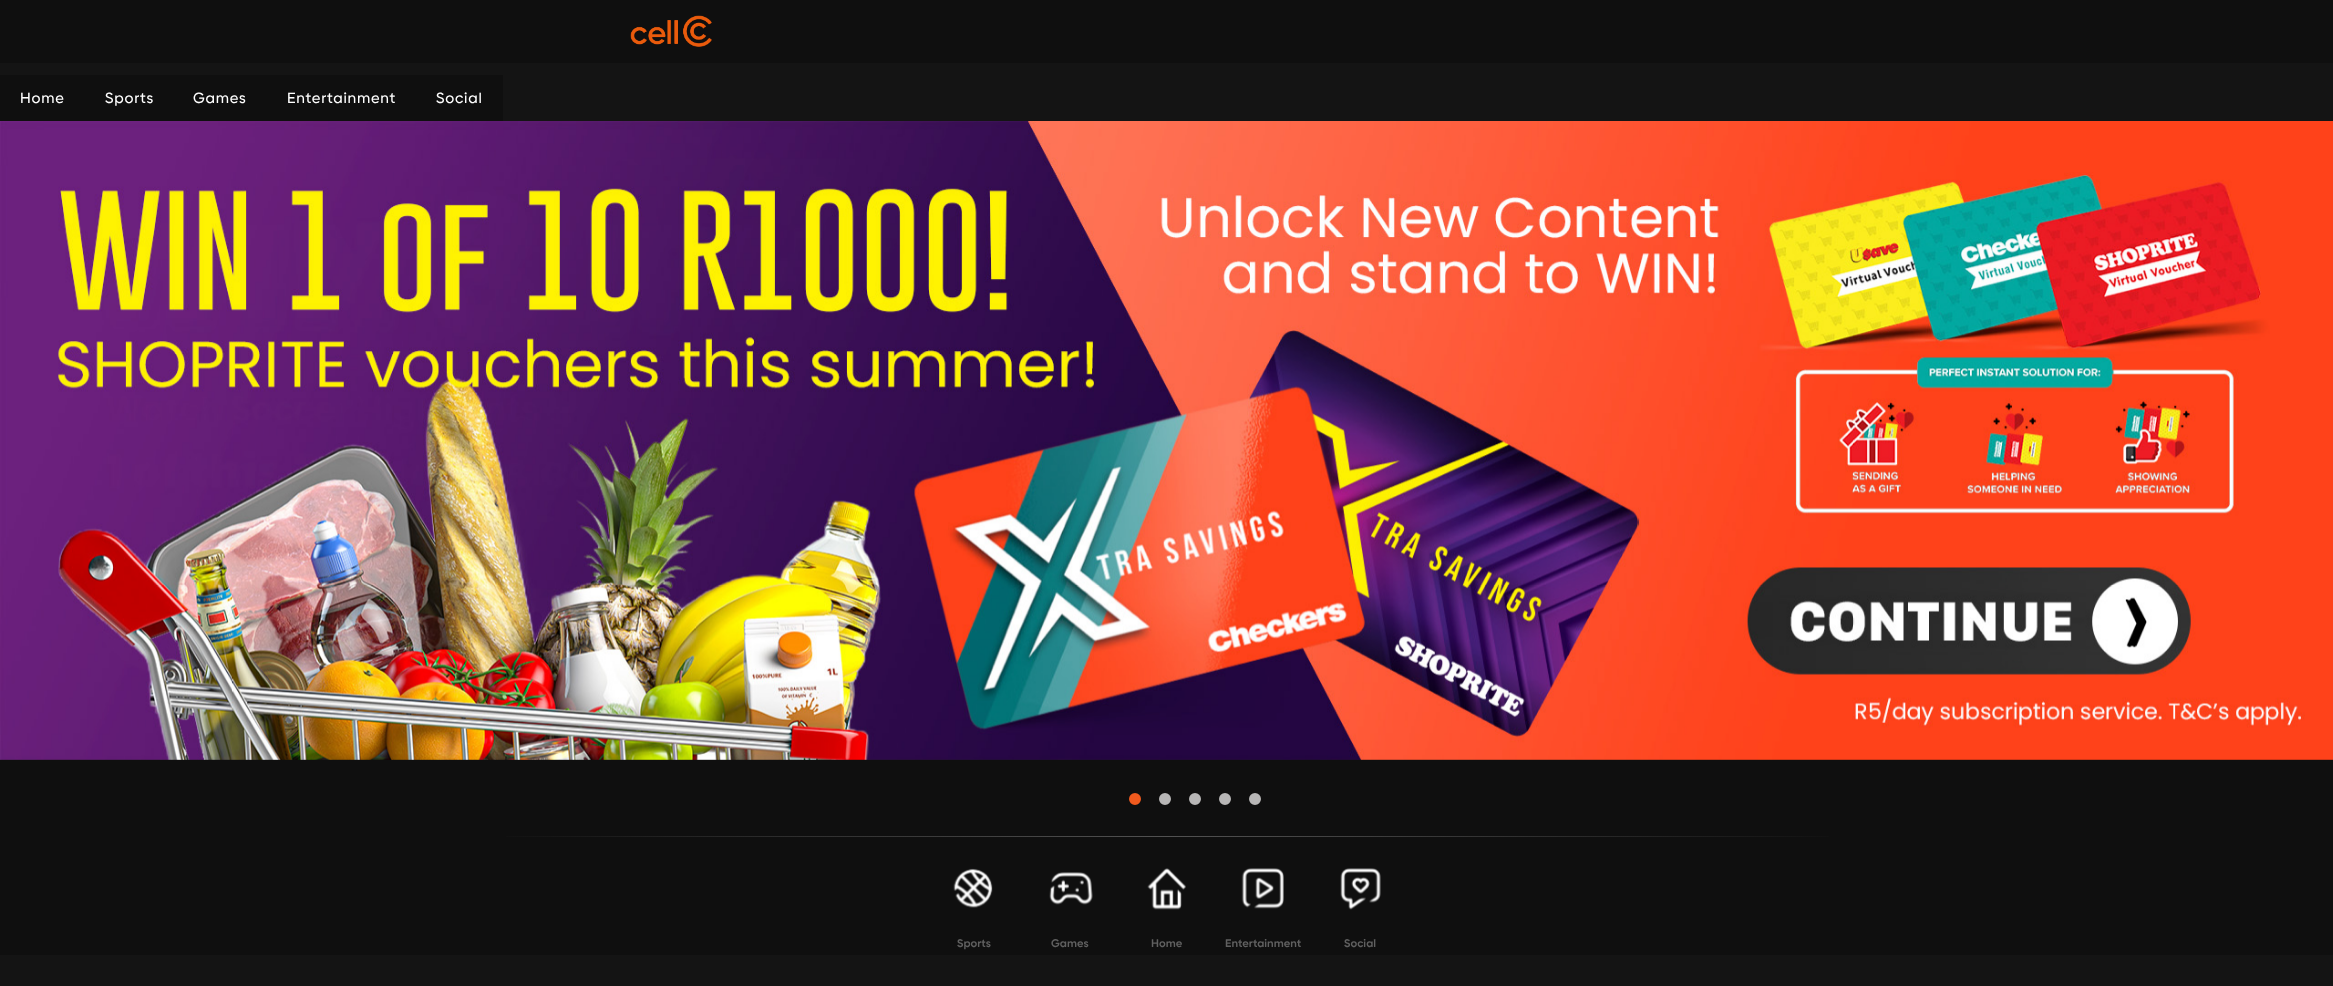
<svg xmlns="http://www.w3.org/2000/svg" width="2333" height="986">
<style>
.a{font:500 15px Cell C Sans;letter-spacing:0.75px;fill:#fff}
.b{font:bold 11.25px Cell C Sans;fill:#606060}
</style>
<defs>
<linearGradient id="g1" gradientUnits="userSpaceOnUse" x1="480" y1="837" x2="1855" y2="837"><stop offset="0" stop-color="#0f0f0f"/><stop offset="0.5" stop-color="#525252"/><stop offset="1" stop-color="#0f0f0f"/></linearGradient>
</defs>
<rect width="100%" height="100%" fill="#141414"/>
<path fill="#0f0f0f" d="M0 0h2333v63H0z"/>
<image href="1.png" x="630" y="15" width="82" height="32"/>
<path fill="#0f0f0f" d="M0 75h503v46H0z"/>
<path fill="#0f0f0f" d="M0 759h2333v196H0z"/>
<image href="2.png" x="0" y="121" width="2333" height="639"/>
<circle fill="#f05a1e" stroke="#f05a1e" stroke-width="3" cx="1135" cy="799" r="4.5"/>
<circle fill="#b8b7b7" stroke="#b8b7b7" stroke-width="3" cx="1165" cy="799" r="4.5"/>
<circle fill="#b8b7b7" stroke="#b8b7b7" stroke-width="3" cx="1195" cy="799" r="4.5"/>
<circle fill="#b8b7b7" stroke="#b8b7b7" stroke-width="3" cx="1225" cy="799" r="4.5"/>
<circle fill="#b8b7b7" stroke="#b8b7b7" stroke-width="3" cx="1255" cy="799" r="4.5"/>
<path fill="url(#g1)" d="M506 836h1323v1H506z"/>
<image href="3.png" x="953" y="868" width="40" height="40"/>
<image href="4.png" x="1049" y="872" width="44" height="33"/>
<image href="5.png" x="1147" y="868" width="39" height="42"/>
<image href="6.png" x="1241" y="868" width="43" height="41"/>
<image href="7.png" x="1340" y="868" width="41" height="42"/>
<text class="a" x="20" y="103">Home</text>
<text class="a" x="105" y="103">Sports</text>
<text class="a" x="193" y="103">Games</text>
<text class="a" x="287" y="103">Entertainment</text>
<text class="a" x="436" y="103">Social</text>
<text class="b" x="957" y="947">Sports</text>
<text class="b" x="1051" y="947">Games</text>
<text class="b" x="1151" y="947">Home</text>
<text class="b" x="1225" y="947">Entertainment</text>
<text class="b" x="1344" y="947">Social</text>
</svg>
